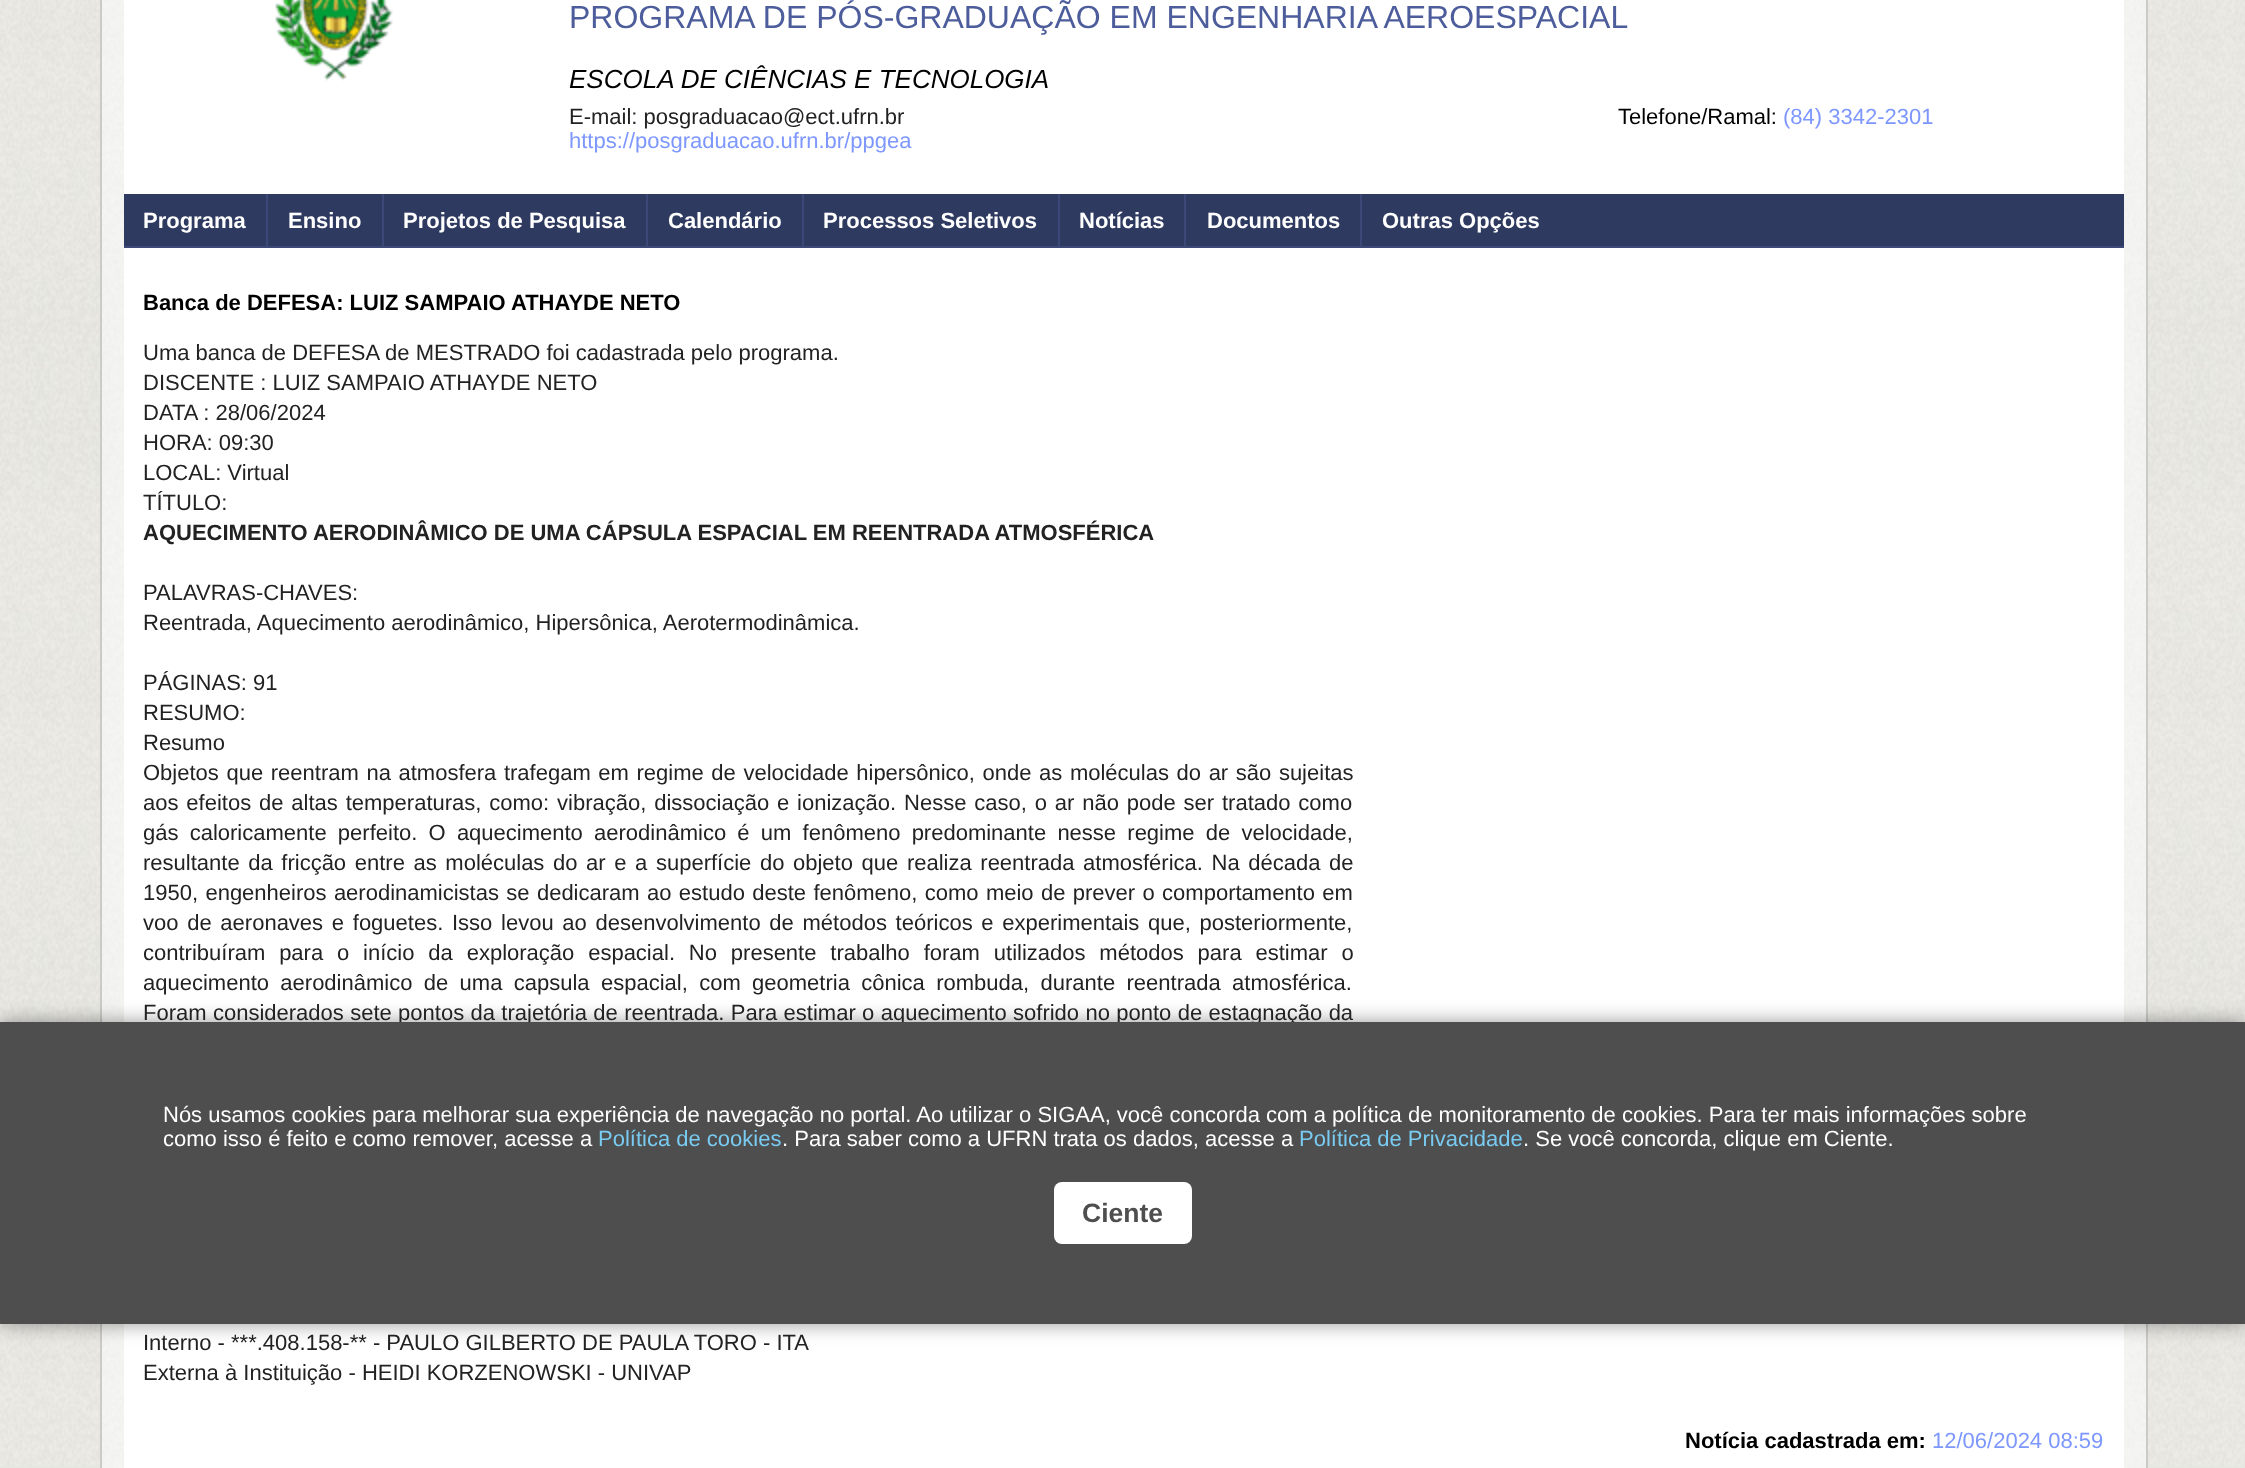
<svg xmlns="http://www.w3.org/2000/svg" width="2245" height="1468">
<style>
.a{font:32px Liberation Sans;fill:#4d5d9c}
.b{font:italic 26px Liberation Sans;fill:#000}
.c{font:22px Liberation Sans;fill:#222}
.d{font:22px Liberation Sans;fill:#000}
.e{font:22px Liberation Sans;fill:#7d97fe}
.f{font:bold 22px Liberation Sans;fill:#fff}
.g{font:bold 22px Liberation Sans;fill:#000}
.h{font:bold 22px Liberation Sans;fill:#222}
.i{font:22px Liberation Sans;fill:#fff}
.j{font:22px Liberation Sans;fill:#79cbf2}
.k{font:bold 26.5px Liberation Sans;fill:#4e4e4e}
</style>
<rect width="100%" height="100%" fill="#e7e7e2"/>
<image href="1.png" x="0" y="0" width="2245" height="1466"/>
<image href="2.png" x="102" y="0" width="2044" height="1468"/>
<path fill="#cacac7" d="M2146 0h2v1468H2146z"/>
<path fill="#cacac7" d="M100 0h2v1468H100z"/>
<path fill="#fff" d="M124 0h2000v1468H124z"/>
<image href="3.png" x="275" y="0" width="118" height="81"/>
<path fill="#2f3a60" d="M124 194h2000v52H124z"/>
<path fill="#3b4878" d="M124 246h2000v2H124z"/>
<path fill="#3b4878" d="M266 194h2v54H266z"/>
<path fill="#3b4878" d="M382 194h2v54H382z"/>
<path fill="#3b4878" d="M646 194h2v54H646z"/>
<path fill="#3b4878" d="M802 194h2v54H802z"/>
<path fill="#3b4878" d="M1058 194h2v54H1058z"/>
<path fill="#3b4878" d="M1184 194h2v54H1184z"/>
<path fill="#3b4878" d="M1360 194h2v54H1360z"/>
<path fill="#00000066" filter="blur(10px)" d="M0 1022h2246v302H0z"/>
<text class="a" x="569" y="28">PROGRAMA DE PÓS-GRADUAÇÃO EM ENGENHARIA AEROESPACIAL</text>
<text class="b" x="569" y="88">ESCOLA DE CIÊNCIAS E TECNOLOGIA</text>
<text class="c" x="569" y="124">E-mail: posgraduacao@ect.ufrn.br</text>
<text class="d" x="1618" y="124">Telefone/Ramal:</text>
<text class="e" x="1783" y="124">(84) 3342-2301</text>
<text class="e" x="569" y="148">https://posgraduacao.ufrn.br/ppgea</text>
<text class="f" x="143" y="228">Programa</text>
<text class="f" x="288" y="228">Ensino</text>
<text class="f" x="403" y="228">Projetos de Pesquisa</text>
<text class="f" x="668" y="228">Calendário</text>
<text class="f" x="823" y="228">Processos Seletivos</text>
<text class="f" x="1079" y="228">Notícias</text>
<text class="f" x="1207" y="228">Documentos</text>
<text class="f" x="1382" y="228">Outras Opções</text>
<text class="g" x="143" y="310">Banca de DEFESA: LUIZ SAMPAIO ATHAYDE NETO</text>
<text class="c" x="143" y="360">Uma banca de DEFESA de MESTRADO foi cadastrada pelo programa.</text>
<text class="c" x="143" y="390">DISCENTE : LUIZ SAMPAIO ATHAYDE NETO</text>
<text class="c" x="143" y="420">DATA : 28/06/2024</text>
<text class="c" x="143" y="450">HORA: 09:30</text>
<text class="c" x="143" y="480">LOCAL: Virtual</text>
<text class="c" x="143" y="510">TÍTULO:</text>
<text class="h" x="143" y="540">AQUECIMENTO AERODINÂMICO DE UMA CÁPSULA ESPACIAL EM REENTRADA ATMOSFÉRICA</text>
<text class="c" x="143" y="600">PALAVRAS-CHAVES:</text>
<text class="c" x="143" y="630">Reentrada, Aquecimento aerodinâmico, Hipersônica, Aerotermodinâmica.</text>
<text class="c" x="143" y="690">PÁGINAS: 91</text>
<text class="c" x="143" y="720">RESUMO:</text>
<text class="c" x="143" y="750">Resumo</text>
<text class="c" x="143" y="780" word-spacing="1.5">Objetos que reentram na atmosfera trafegam em regime de velocidade hipersônico, onde as moléculas do ar são sujeitas</text>
<text class="c" x="143" y="810" word-spacing="1.75">aos efeitos de altas temperaturas, como: vibração, dissociação e ionização. Nesse caso, o ar não pode ser tratado como</text>
<text class="c" x="143" y="840" word-spacing="5.1">gás caloricamente perfeito. O aquecimento aerodinâmico é um fenômeno predominante nesse regime de velocidade,</text>
<text class="c" x="143" y="870" word-spacing="2.5">resultante da fricção entre as moléculas do ar e a superfície do objeto que realiza reentrada atmosférica. Na década de</text>
<text class="c" x="143" y="900" word-spacing="1.25">1950, engenheiros aerodinamicistas se dedicaram ao estudo deste fenômeno, como meio de prever o comportamento em</text>
<text class="c" x="143" y="930" word-spacing="2.6">voo de aeronaves e foguetes. Isso levou ao desenvolvimento de métodos teóricos e experimentais que, posteriormente,</text>
<text class="c" x="143" y="960" word-spacing="7.75">contribuíram para o início da exploração espacial. No presente trabalho foram utilizados métodos para estimar o</text>
<text class="c" x="143" y="990" word-spacing="5.25">aquecimento aerodinâmico de uma capsula espacial, com geometria cônica rombuda, durante reentrada atmosférica.</text>
<text class="c" x="143" y="1020" word-spacing="0.25">Foram considerados sete pontos da trajetória de reentrada. Para estimar o aquecimento sofrido no ponto de estagnação da</text>
<text class="c" x="143" y="1350">Interno - ***.408.158-** - PAULO GILBERTO DE PAULA TORO - ITA</text>
<text class="c" x="143" y="1380">Externa à Instituição - HEIDI KORZENOWSKI - UNIVAP</text>
<text class="g" x="1685" y="1448">Notícia cadastrada em:</text>
<text class="e" x="1932" y="1448">12/06/2024 08:59</text>
<path fill="#4e4e4e" d="M0 1022h2245v302H0z"/>
<text class="i" x="163" y="1122">Nós usamos cookies para melhorar sua experiência de navegação no portal. Ao utilizar o SIGAA, você concorda com a política de monitoramento de cookies. Para ter mais informações sobre</text>
<text class="i" x="163" y="1146">como isso é feito e como remover, acesse a</text>
<text class="j" x="598" y="1146">Política de cookies</text>
<text class="i" x="782" y="1146">. Para saber como a UFRN trata os dados, acesse a</text>
<text class="j" x="1299" y="1146">Política de Privacidade</text>
<text class="i" x="1523" y="1146">. Se você concorda, clique em Ciente.</text>
<rect fill="#fff" x="1054" y="1182" width="138" height="62" rx="8"/>
<text class="k" x="1082" y="1222">Ciente</text>
</svg>
